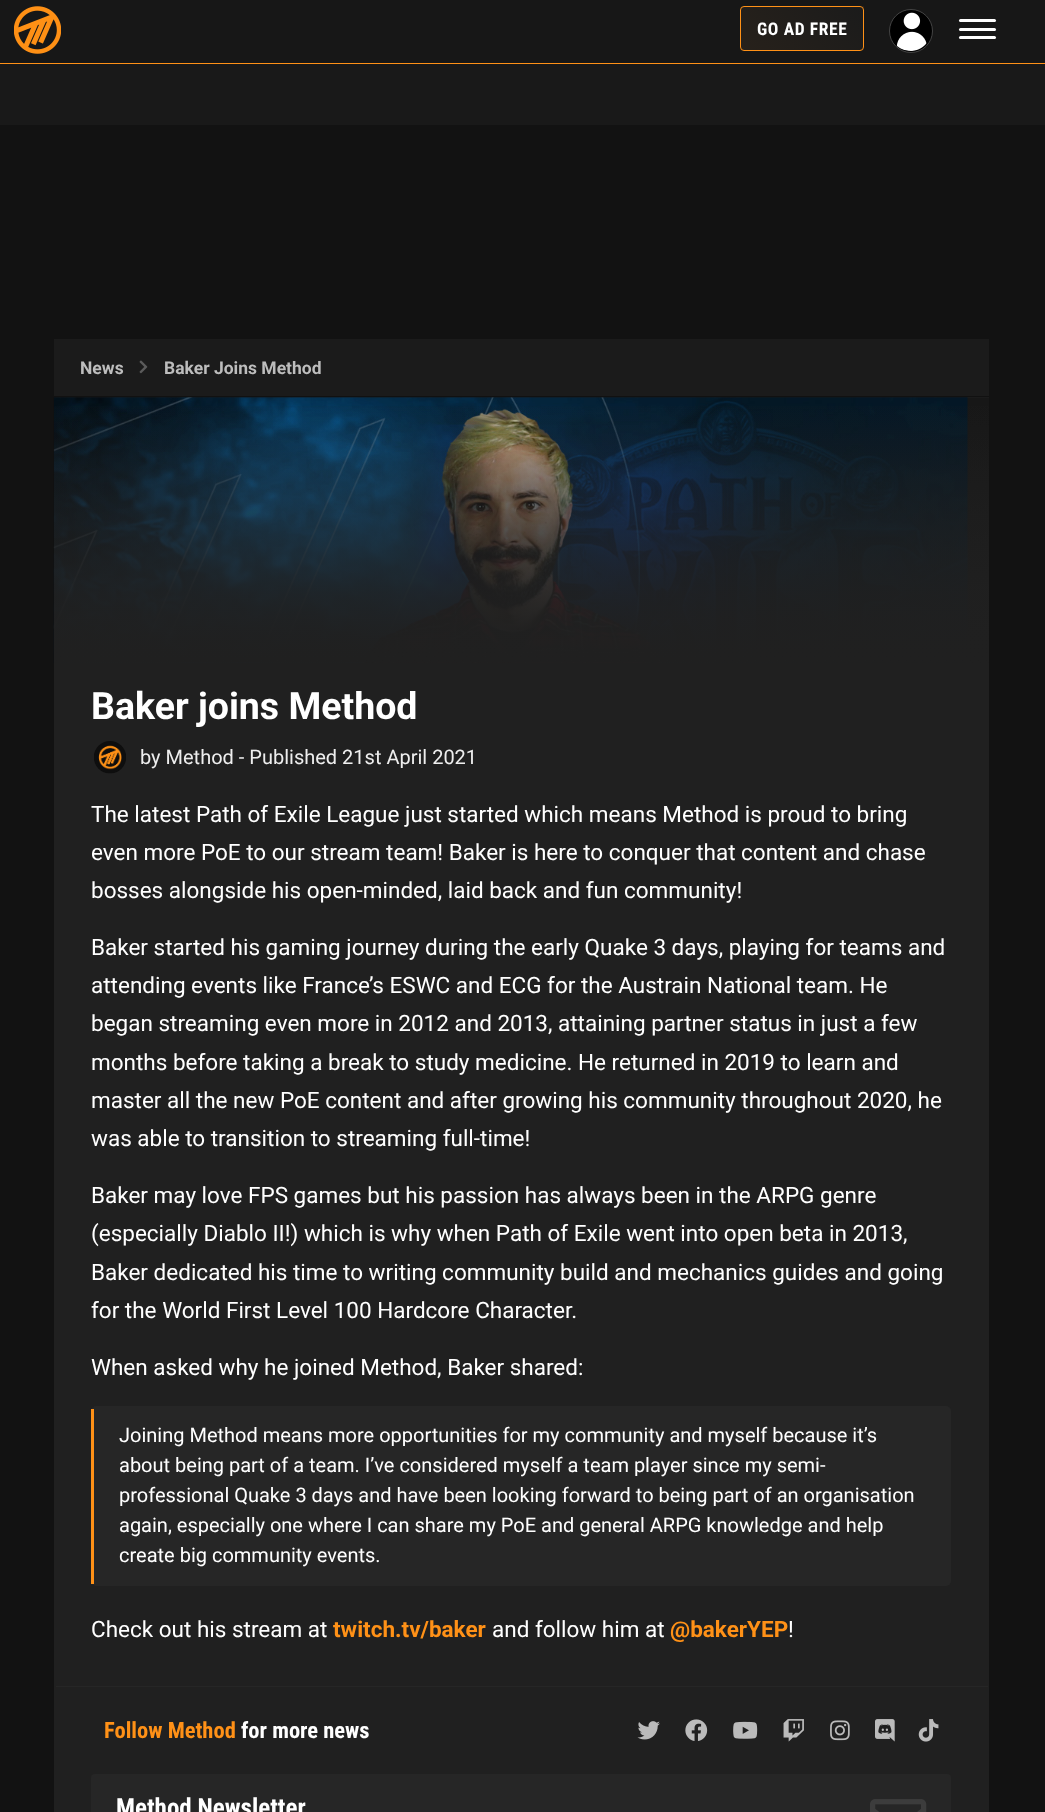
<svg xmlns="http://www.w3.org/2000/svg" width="1045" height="1812">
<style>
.a{font:bold 17.5px Roboto Condensed;letter-spacing:0.6px;fill:#fff}
.b{font:bold 17.5px Roboto;fill:#bdbdbd}
.c{font:bold 37.5px Roboto;fill:#fff}
.d{font:20px Roboto;fill:#eee}
.e{font:22.5px Roboto;fill:#fff}
.f{font:20px Roboto;fill:#fff}
.g{font:bold 22.5px Roboto;fill:#ff9117}
.h{font:bold 22.5px Roboto Condensed;fill:#ff9117}
.i{font:bold 22.5px Roboto Condensed;fill:#fff}
.j{font:bold 25px Roboto Condensed;fill:#fff}
</style>
<defs>
<clipPath id="clip1"><rect x="740" y="6" width="124" height="45" rx="4"/></clipPath>
<linearGradient id="g1" gradientUnits="userSpaceOnUse" x1="761" y1="27" x2="843" y2="-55"><stop offset="0" stop-color="#27211b"/><stop offset="1" stop-color="#1b1b1b"/></linearGradient>
<linearGradient id="g2" gradientUnits="userSpaceOnUse" x1="882" y1="27" x2="964" y2="-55"><stop offset="0" stop-color="#27211b"/><stop offset="1" stop-color="#1b1b1b"/></linearGradient>
<linearGradient id="g3" gradientUnits="userSpaceOnUse" x1="761" y1="70" x2="843" y2="-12"><stop offset="0" stop-color="#27211b"/><stop offset="1" stop-color="#1b1b1b"/></linearGradient>
<linearGradient id="g4" gradientUnits="userSpaceOnUse" x1="521" y1="397" x2="521" y2="664"><stop offset="0" stop-color="#202020" stop-opacity="0"/><stop offset="1" stop-color="#202020"/></linearGradient>
</defs>
<rect width="100%" height="100%" fill="#121212"/>
<path fill="#171717" d="M0 0h1045v63H0z"/>
<image href="1.png" x="14" y="6" width="47" height="48"/>
<g clip-path="url(#clip1)">
<path fill="url(#g1)" d="M741 6h122v2H741z"/>
</g>
<path fill="url(#g2)" d="M863 6h1v2H863z"/>
<path fill="url(#g3)" d="M741 8h122v42H741z"/>
<rect fill="none" stroke="#ff9117" x="740.5" y="6.5" width="123" height="44" rx="3.5"/>
<circle fill="#000" stroke="#444" cx="911" cy="31" r="21.5"/>
<image href="2.png" x="896" y="12" width="31" height="39"/>
<rect fill="#fff" x="959" y="19" width="37" height="3" rx="1.5"/>
<rect fill="#fff" x="959" y="28" width="37" height="3" rx="1.5"/>
<rect fill="#fff" x="959" y="36" width="37" height="3" rx="1.5"/>
<path fill="#191919" d="M0 64h1045v61H0z"/>
<path fill="#ff9117" d="M0 63h1045v1H0z"/>
<path fill="#202020" d="M54 664h935v1148H54z"/>
<path fill="#1b1b1b" d="M54 339h935v59H54z"/>
<path fill="#111" d="M54 396h935v1H54z"/>
<image href="3.png" x="139" y="360" width="9" height="14"/>
<path fill="#171717" d="M967 398h22v264H967z"/>
<image href="4.png" x="53" y="397" width="915" height="266"/>
<path fill="url(#g4)" d="M54 406h935v256H54z"/>
<path fill="url(#g4)" d="M54 406h935v258H54z"/>
<image href="5.png" x="94" y="741" width="32" height="33"/>
<rect fill="#262626" x="91" y="1406" width="860" height="180" rx="5"/>
<path fill="#ff9117" d="M91 1409h3v175H91z"/>
<path fill="#262626" d="M56 1686h932v1H56z"/>
<image href="6.png" x="637" y="1721" width="23" height="19"/>
<image href="7.png" x="685" y="1719" width="23" height="22"/>
<image href="8.png" x="733" y="1721" width="25" height="18"/>
<image href="9.png" x="783" y="1719" width="21" height="23"/>
<image href="10.png" x="830" y="1720" width="20" height="21"/>
<image href="11.png" x="875" y="1719" width="20" height="23"/>
<image href="12.png" x="918" y="1719" width="21" height="23"/>
<rect fill="#262626" x="91" y="1774" width="860" height="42" rx="4"/>
<image href="13.png" x="870" y="1799" width="57" height="13"/>
<text class="a" x="757" y="35">GO AD FREE</text>
<text class="b" x="80" y="374">News</text>
<text class="b" x="164" y="374">Baker Joins Method</text>
<text class="c" x="91" y="719">Baker joins Method</text>
<text class="d" x="140" y="764">by Method - Published 21st April 2021</text>
<text class="e" x="91" y="822">The latest Path of Exile League just started which means Method is proud to bring</text>
<text class="e" x="91" y="860">even more PoE to our stream team! Baker is here to conquer that content and chase</text>
<text class="e" x="91" y="898">bosses alongside his open-minded, laid back and fun community!</text>
<text class="e" x="91" y="955">Baker started his gaming journey during the early Quake 3 days, playing for teams and</text>
<text class="e" x="91" y="993">attending events like France’s ESWC and ECG for the Austrain National team. He</text>
<text class="e" x="91" y="1031">began streaming even more in 2012 and 2013, attaining partner status in just a few</text>
<text class="e" x="91" y="1070">months before taking a break to study medicine. He returned in 2019 to learn and</text>
<text class="e" x="91" y="1108">master all the new PoE content and after growing his community throughout 2020, he</text>
<text class="e" x="91" y="1146">was able to transition to streaming full-time!</text>
<text class="e" x="91" y="1203">Baker may love FPS games but his passion has always been in the ARPG genre</text>
<text class="e" x="91" y="1241">(especially Diablo II!) which is why when Path of Exile went into open beta in 2013,</text>
<text class="e" x="91" y="1280">Baker dedicated his time to writing community build and mechanics guides and going</text>
<text class="e" x="91" y="1318">for the World First Level 100 Hardcore Character.</text>
<text class="e" x="91" y="1375">When asked why he joined Method, Baker shared:</text>
<text class="f" x="119" y="1442">Joining Method means more opportunities for my community and myself because it’s</text>
<text class="f" x="119" y="1472">about being part of a team. I’ve considered myself a team player since my semi-</text>
<text class="f" x="119" y="1502">professional Quake 3 days and have been looking forward to being part of an organisation</text>
<text class="f" x="119" y="1532">again, especially one where I can share my PoE and general ARPG knowledge and help</text>
<text class="f" x="119" y="1562">create big community events.</text>
<text class="e" x="91" y="1637">Check out his stream at</text>
<text class="g" x="333" y="1637">twitch.tv/baker</text>
<text class="e" x="492" y="1637">and follow him at</text>
<text class="g" x="670" y="1637">@bakerYEP</text>
<text class="e" x="788" y="1637">!</text>
<text class="h" x="104" y="1738">Follow Method</text>
<text class="i" x="241" y="1738">for more news</text>
<text class="j" x="116" y="1816">Method Newsletter</text>
</svg>
